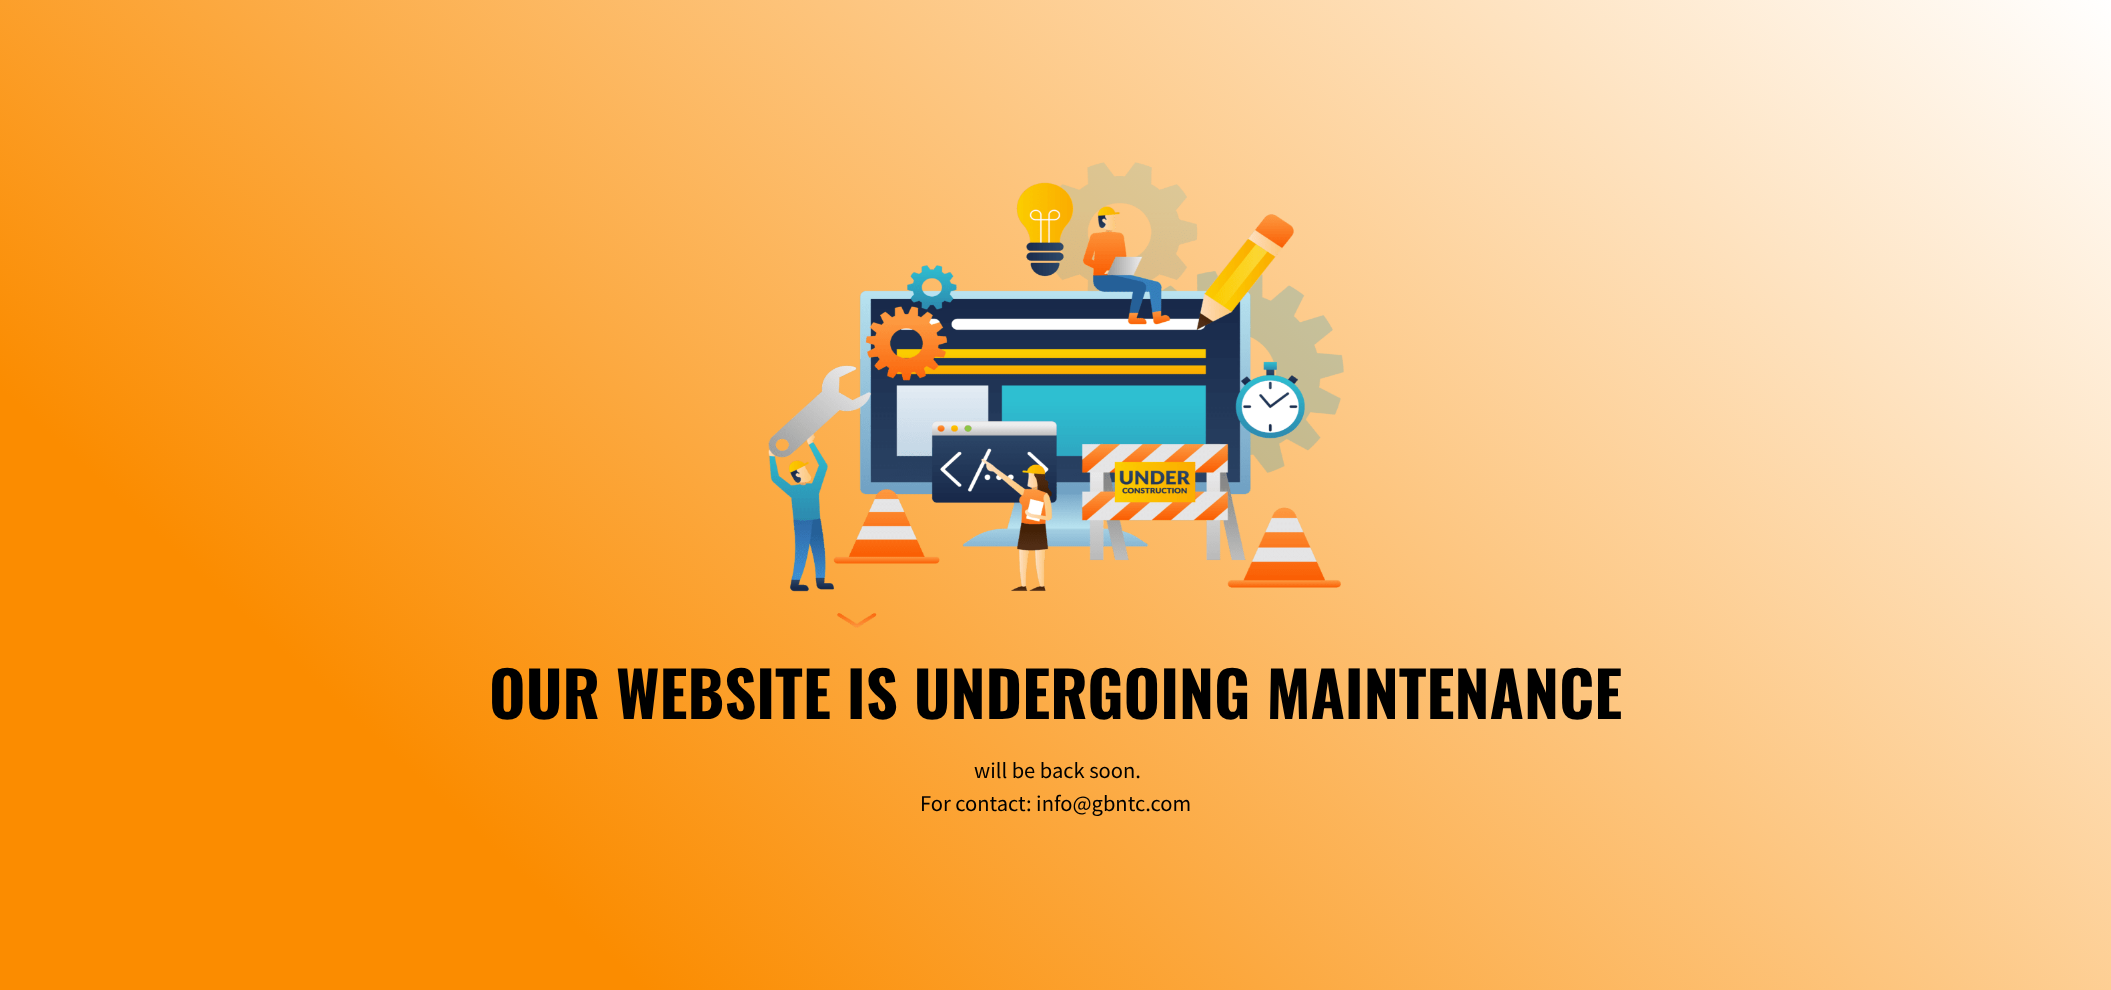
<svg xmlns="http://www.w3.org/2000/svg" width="2111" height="990">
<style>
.a{font:bold 62.5px Oswald;fill:#000}
.b{font:22.5px Source Sans Pro;fill:#000}
</style>
<defs>
<linearGradient id="g1" gradientUnits="userSpaceOnUse" x1="282" y1="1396" x2="1829" y2="-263"><stop offset="0.24" stop-color="#fb8c00"/><stop offset="1" stop-color="#fff"/></linearGradient>
</defs>
<rect width="100%" height="100%" fill="#fff"/>
<path fill="url(#g1)" d="M0 0h2111v990H0z"/>
<image href="1.png" x="768" y="162" width="576" height="466"/>
<text class="a" x="489" y="719">OUR WEBSITE IS UNDERGOING MAINTENANCE</text>
<text class="b" x="974" y="778">will be back soon.</text>
<text class="b" x="920" y="811">For contact: info@gbntc.com</text>
</svg>
